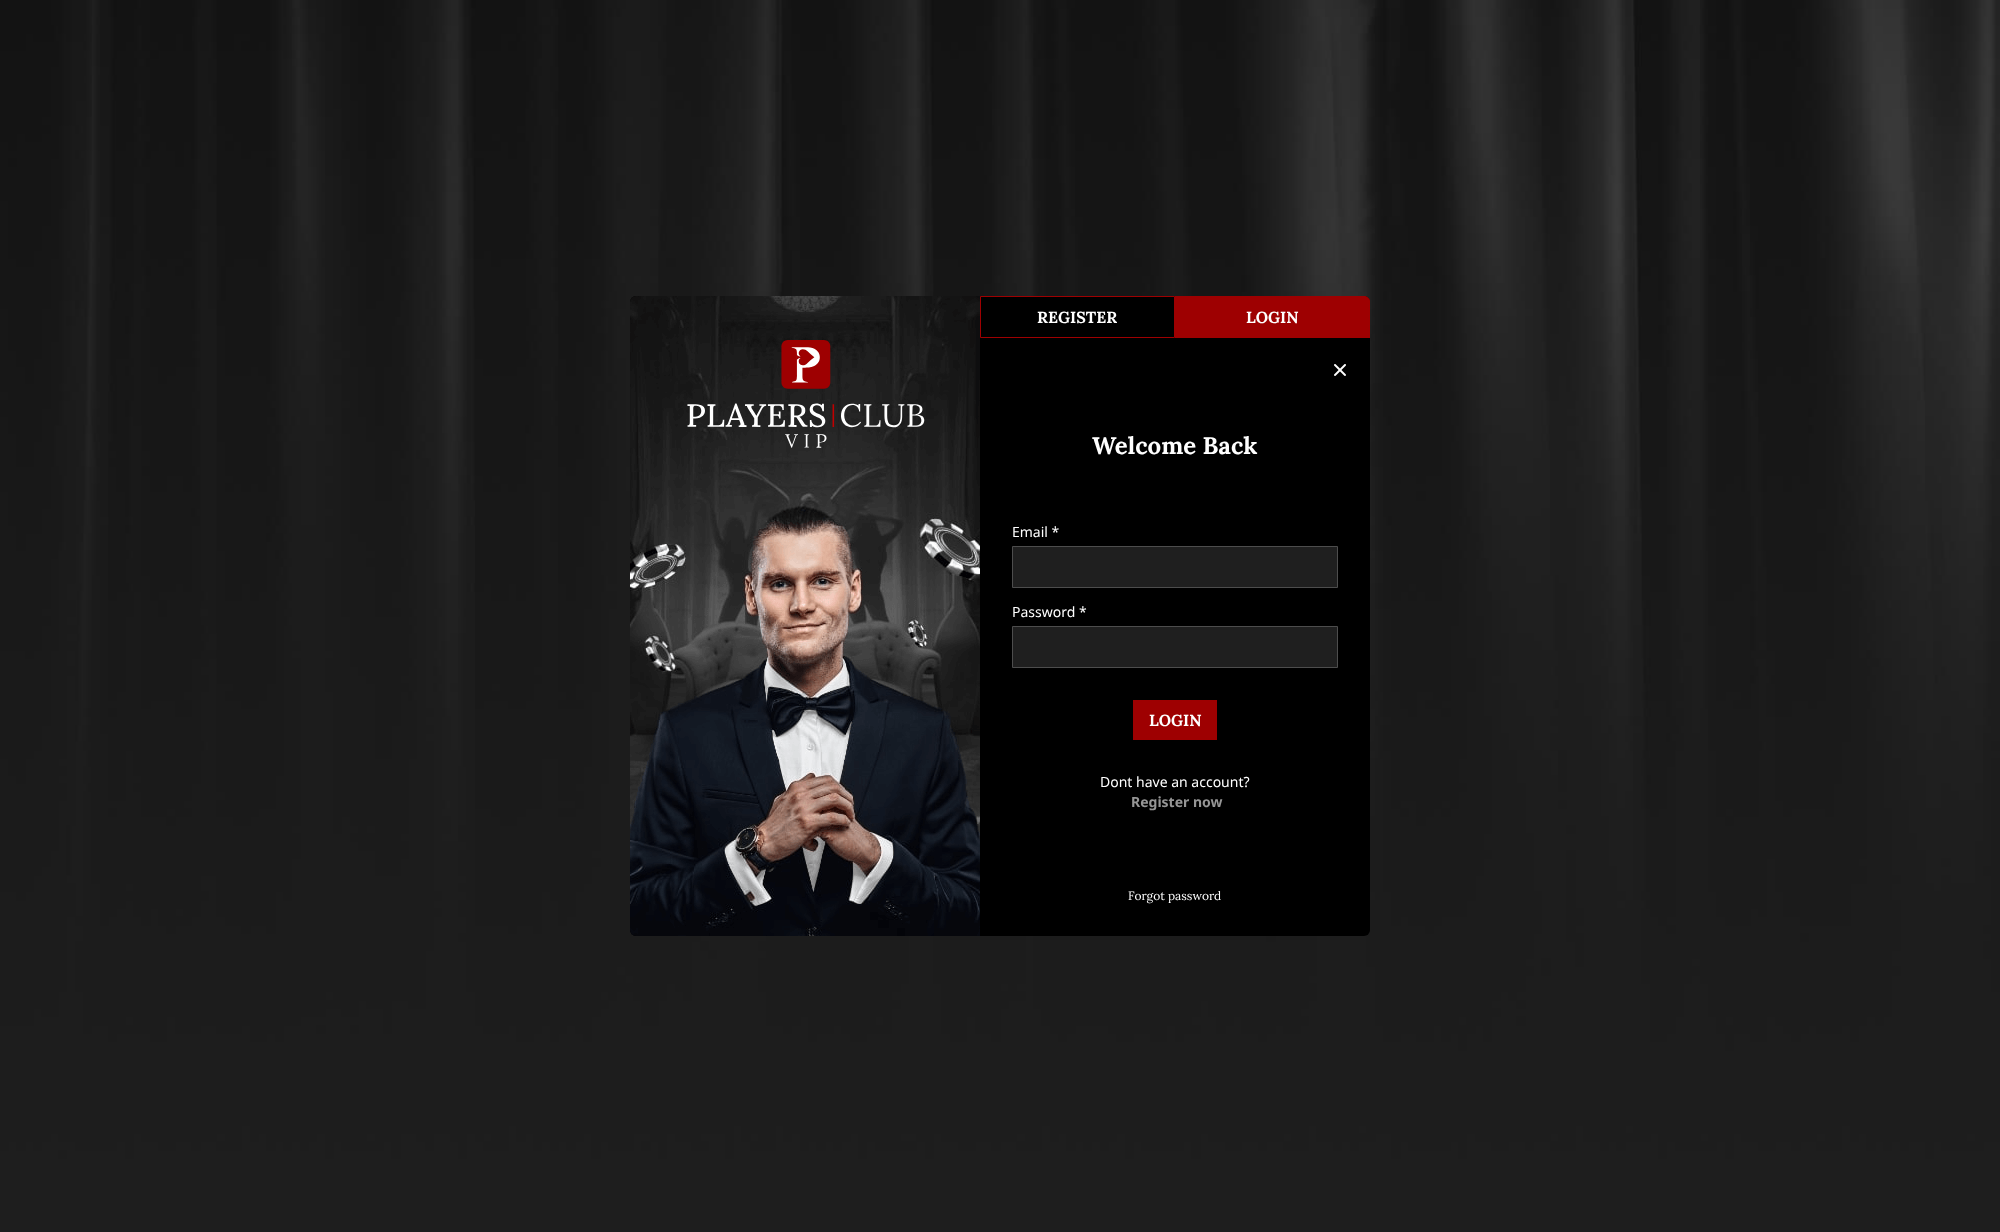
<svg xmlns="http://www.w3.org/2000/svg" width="2000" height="1232">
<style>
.a{font:bold 16px Lora;fill:#fff}
.b{font:bold 24px Lora;fill:#fff}
.c{font:14px Noto Sans;fill:#fff}
.d{font:bold 14px Noto Sans;fill:#969696}
.e{font:12px Lora;fill:#fff}
</style>
<rect width="100%" height="100%" fill="#fff"/>
<image href="1.png" x="0" y="0" width="2000" height="1232"/>
<rect fill="#000" x="630" y="296" width="740" height="640" rx="6"/>
<image href="2.png" x="630" y="296" width="350" height="640"/>
<image href="3.png" x="687" y="340" width="238" height="108"/>
<path fill="none" stroke="#9e0001" d="M980.5 296.5h194v41H980.5z"/>
<path fill="#9e0001" d="M1175 296h189c3.5 0 6 2.5 6 6v36h-195z"/>
<path fill="#9e0001" d="M1175 296v42h195v-36c0-1 0-2-1-3v38h-193v-40h191l-3-1z"/>
<path fill="#1f1f1f" stroke="#4d4d4d" d="M1012.5 546.5h325v41H1012.5z"/>
<path fill="#1f1f1f" stroke="#4d4d4d" d="M1012.5 626.5h325v41H1012.5z"/>
<path fill="#9e0001" d="M1133 700h84v40H1133z"/>
<image href="4.png" x="1334" y="364" width="12" height="12"/>
<text class="a" x="1037" y="323">REGISTER</text>
<text class="a" x="1246" y="323">LOGIN</text>
<text class="b" x="1092" y="454">Welcome Back</text>
<text class="c" x="1012" y="537">Email *</text>
<text class="c" x="1012" y="617">Password *</text>
<text class="a" x="1149" y="726">LOGIN</text>
<text class="c" x="1100" y="787">Dont have an account?</text>
<text class="d" x="1131" y="807">Register now</text>
<text class="e" x="1128" y="900">Forgot password</text>
</svg>
